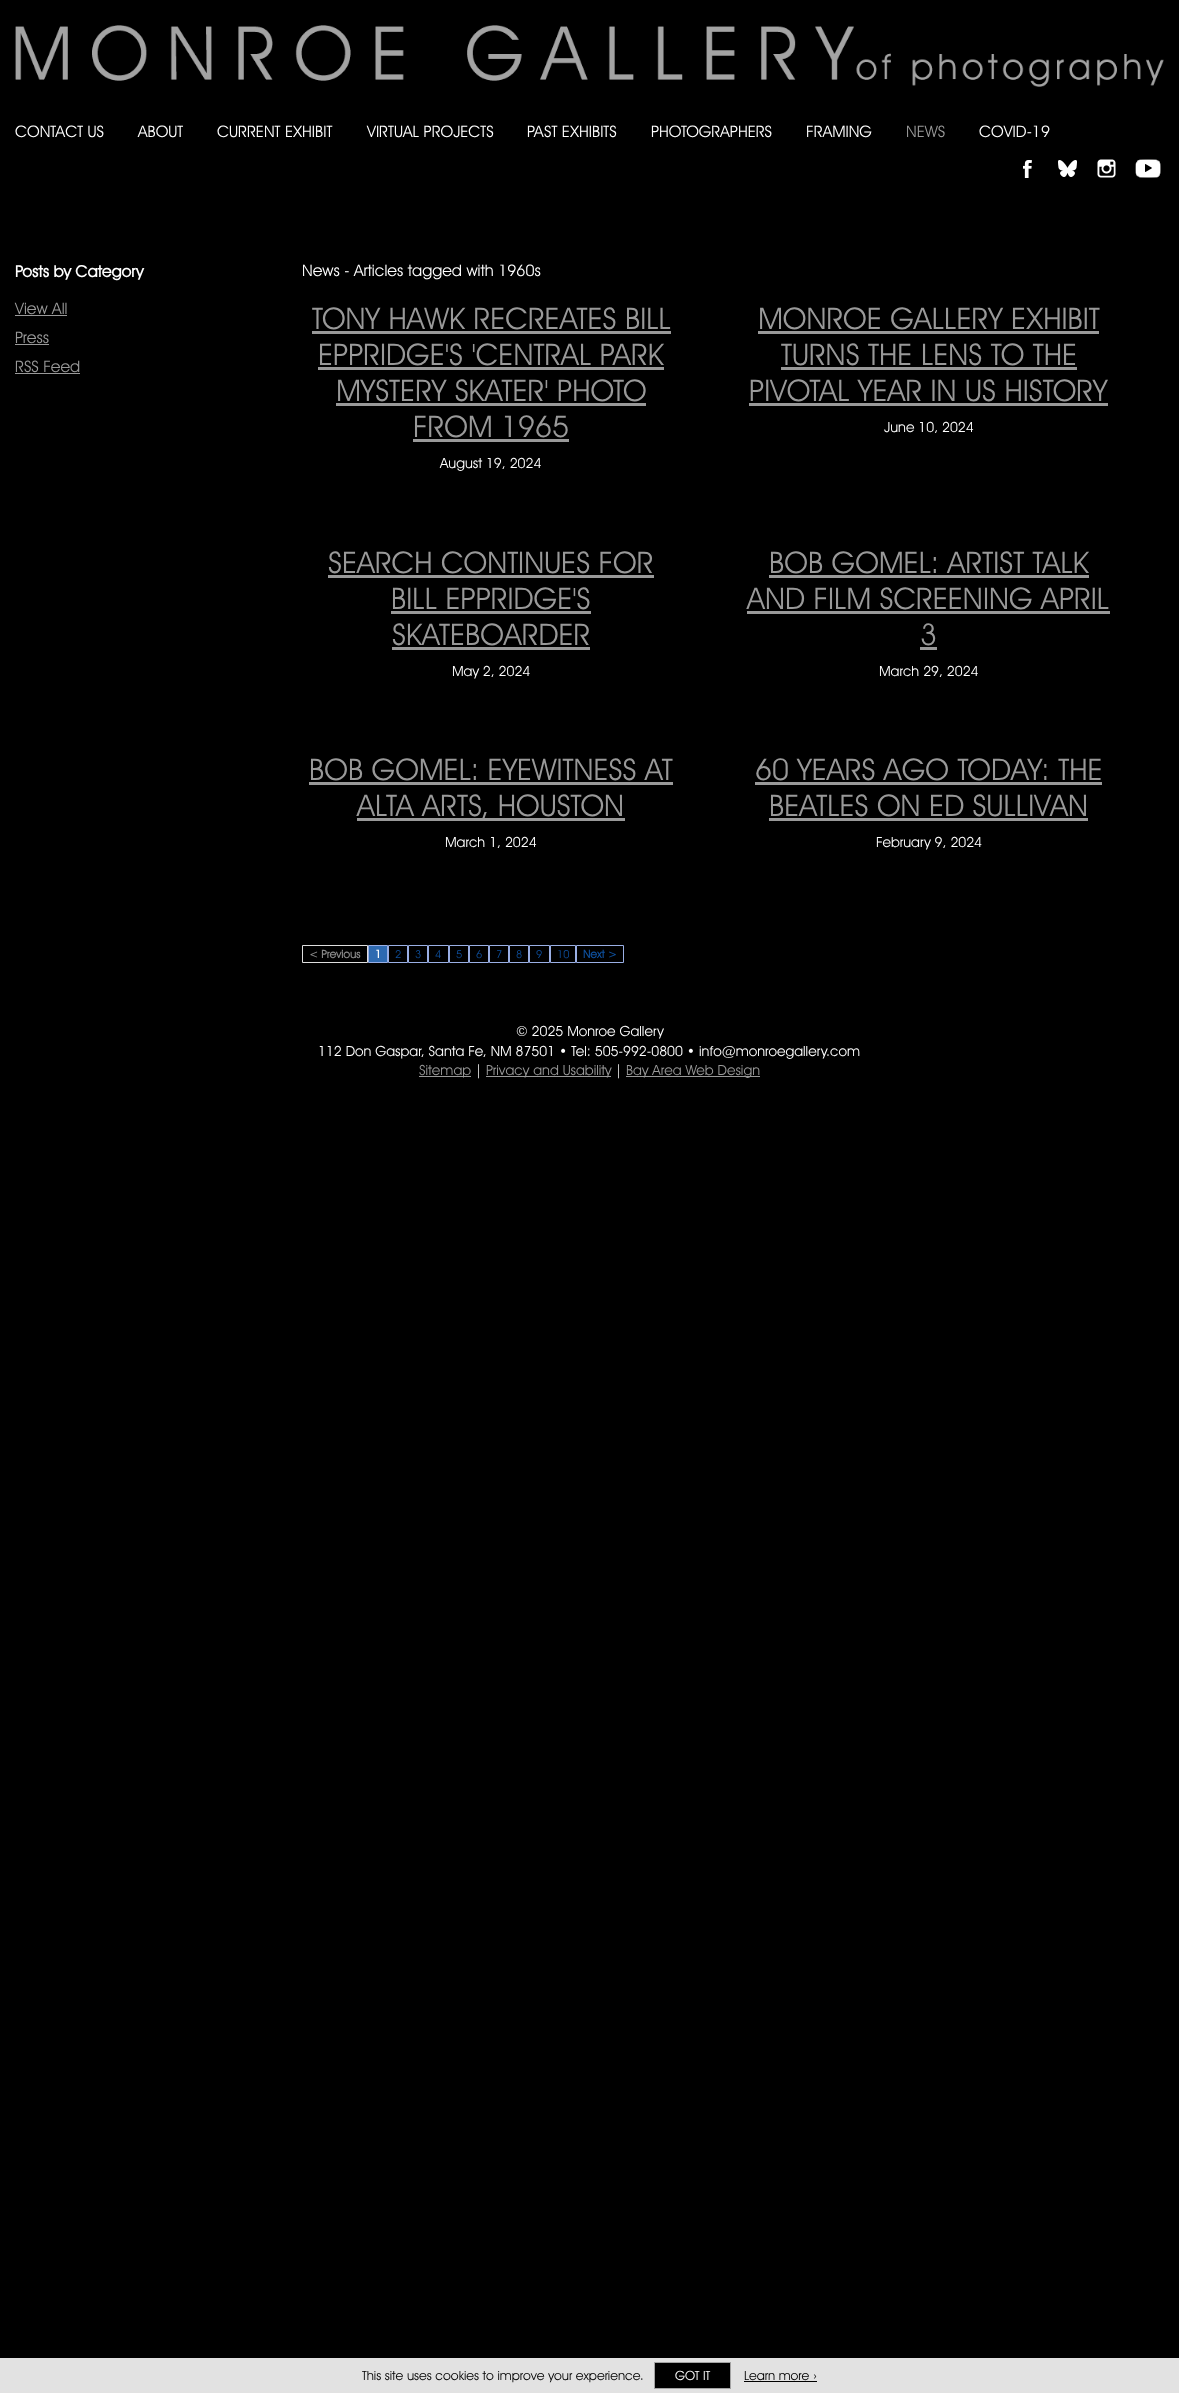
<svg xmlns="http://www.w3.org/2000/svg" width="1179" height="2393">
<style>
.a{font:16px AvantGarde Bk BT;fill:#fff}
.b{font:16px AvantGarde Bk BT;fill:#999}
.c{font:bold 16px AvantGarde Bk BT;fill:#fff}
.d{font:30px AvantGarde Bk BT;fill:#999}
.e{font:14px AvantGarde Bk BT;fill:#fff}
.f{font:bold 11px AvantGarde Bk BT;fill:#888}
.g{font:bold 11px AvantGarde Bk BT;fill:#fff}
.h{font:11px AvantGarde Bk BT;fill:#0e509e}
.i{font:bold 11px AvantGarde Bk BT;fill:#0e509e}
.j{font:14px AvantGarde Bk BT;fill:#999}
.k{font:12.8px AvantGarde Bk BT;fill:#000}
.l{font:12.8px AvantGarde Bk BT;fill:#fff}
</style>
<rect width="100%" height="100%" fill="#000"/>
<image href="1.png" x="15" y="25" width="1149" height="62"/>
<image href="2.png" x="15" y="25" width="1149" height="62"/>
<image href="3.png" x="1023" y="160" width="9" height="18"/>
<image href="4.png" x="1058" y="160" width="19" height="17"/>
<image href="5.png" x="1097" y="159" width="19" height="19"/>
<image href="6.png" x="1135" y="159" width="26" height="19"/>
<path fill="#999" d="M312 331h359v3H312z"/>
<path fill="#999" d="M318 367h346v3H318z"/>
<path fill="#999" d="M336 403h310v3H336z"/>
<path fill="#999" d="M413 439h156v3H413z"/>
<path fill="#999" d="M758 331h341v3H758z"/>
<path fill="#999" d="M781 367h296v3H781z"/>
<path fill="#999" d="M749 403h359v3H749z"/>
<path fill="#999" d="M328 575h326v3H328z"/>
<path fill="#999" d="M391 611h200v3H391z"/>
<path fill="#999" d="M392 647h198v3H392z"/>
<path fill="#999" d="M769 575h320v3H769z"/>
<path fill="#999" d="M747 611h363v3H747z"/>
<path fill="#999" d="M920 647h17v3H920z"/>
<path fill="#999" d="M309 782h364v3H309z"/>
<path fill="#999" d="M357 818h268v3H357z"/>
<path fill="#999" d="M755 782h347v3H755z"/>
<path fill="#999" d="M769 818h319v3H769z"/>
<path fill="none" stroke="#dedede" d="M302.5 945.5h65v17H302.5z"/>
<path fill="#2e6ab1" stroke="#9aafe5" d="M368.5 945.5h19v17H368.5z"/>
<path fill="none" stroke="#9aafe5" d="M388.5 945.5h19v17H388.5z"/>
<path fill="none" stroke="#9aafe5" d="M408.5 945.5h19v17H408.5z"/>
<path fill="none" stroke="#9aafe5" d="M428.5 945.5h20v17H428.5z"/>
<path fill="none" stroke="#9aafe5" d="M449.5 945.5h19v17H449.5z"/>
<path fill="none" stroke="#9aafe5" d="M469.5 945.5h19v17H469.5z"/>
<path fill="none" stroke="#9aafe5" d="M489.5 945.5h19v17H489.5z"/>
<path fill="none" stroke="#9aafe5" d="M509.5 945.5h19v17H509.5z"/>
<path fill="none" stroke="#9aafe5" d="M529.5 945.5h20v17H529.5z"/>
<path fill="none" stroke="#9aafe5" d="M550.5 945.5h25v17H550.5z"/>
<path fill="none" stroke="#9aafe5" d="M576.5 945.5h47v17H576.5z"/>
<path fill="#999" d="M15 315h52v1H15z"/>
<path fill="#999" d="M15 344h34v1H15z"/>
<path fill="#999" d="M15 373h65v1H15z"/>
<path fill="#999" d="M419 1076h52v1H419z"/>
<path fill="#999" d="M486 1076h125v1H486z"/>
<path fill="#999" d="M626 1076h134v1H626z"/>
<path fill="#e2e2e2" d="M0 2358h1179v35H0z"/>
<path fill="#000" stroke="#a3a3a3" d="M654.5 2362.5h76v26H654.5z"/>
<path fill="#000" d="M744 2381h73v1H744z"/>
<text class="a" x="15" y="137">CONTACT US</text>
<text class="a" x="138" y="137">ABOUT</text>
<text class="a" x="217" y="137">CURRENT EXHIBIT</text>
<text class="a" x="367" y="137">VIRTUAL PROJECTS</text>
<text class="a" x="527" y="137">PAST EXHIBITS</text>
<text class="a" x="651" y="137">PHOTOGRAPHERS</text>
<text class="a" x="806" y="137">FRAMING</text>
<text class="b" x="906" y="137">NEWS</text>
<text class="a" x="979" y="137">COVID-19</text>
<text class="c" x="15" y="277">Posts by Category</text>
<text class="a" x="302" y="276">News - Articles tagged with 1960s</text>
<text class="d" x="312" y="329">TONY HAWK RECREATES BILL</text>
<text class="d" x="318" y="365">EPPRIDGE'S 'CENTRAL PARK</text>
<text class="d" x="336" y="401">MYSTERY SKATER' PHOTO</text>
<text class="d" x="413" y="437">FROM 1965</text>
<text class="e" x="440" y="468">August 19, 2024</text>
<text class="d" x="758" y="329">MONROE GALLERY EXHIBIT</text>
<text class="d" x="781" y="365">TURNS THE LENS TO THE</text>
<text class="d" x="749" y="401">PIVOTAL YEAR IN US HISTORY</text>
<text class="e" x="884" y="432">June 10, 2024</text>
<text class="d" x="328" y="573">SEARCH CONTINUES FOR</text>
<text class="d" x="391" y="609">BILL EPPRIDGE'S</text>
<text class="d" x="392" y="645">SKATEBOARDER</text>
<text class="e" x="452" y="676">May 2, 2024</text>
<text class="d" x="769" y="573">BOB GOMEL: ARTIST TALK</text>
<text class="d" x="747" y="609">AND FILM SCREENING APRIL</text>
<text class="d" x="920" y="645">3</text>
<text class="e" x="879" y="676">March 29, 2024</text>
<text class="d" x="309" y="780">BOB GOMEL: EYEWITNESS AT</text>
<text class="d" x="357" y="816">ALTA ARTS, HOUSTON</text>
<text class="e" x="445" y="847">March 1, 2024</text>
<text class="d" x="755" y="780">60 YEARS AGO TODAY: THE</text>
<text class="d" x="769" y="816">BEATLES ON ED SULLIVAN</text>
<text class="e" x="876" y="847">February 9, 2024</text>
<text class="f" x="309" y="958">&lt; Previous</text>
<text class="g" x="375" y="958">1</text>
<text class="h" x="395" y="958">2</text>
<text class="h" x="415" y="958">3</text>
<text class="h" x="435" y="958">4</text>
<text class="h" x="456" y="958">5</text>
<text class="h" x="476" y="958">6</text>
<text class="h" x="496" y="958">7</text>
<text class="h" x="516" y="958">8</text>
<text class="h" x="536" y="958">9</text>
<text class="h" x="557" y="958">10</text>
<text class="i" x="583" y="958">Next &gt;</text>
<text class="b" x="15" y="314">View All</text>
<text class="b" x="15" y="343">Press</text>
<text class="b" x="15" y="372">RSS Feed</text>
<text class="e" x="516" y="1036">© 2025 Monroe Gallery</text>
<text class="e" x="318" y="1056">112 Don Gaspar, Santa Fe, NM 87501 • Tel: 505-992-0800 • info@monroegallery.com</text>
<text class="j" x="419" y="1075">Sitemap</text>
<text class="e" x="475" y="1075">|</text>
<text class="j" x="486" y="1075">Privacy and Usability</text>
<text class="e" x="615" y="1075">|</text>
<text class="j" x="626" y="1075">Bay Area Web Design</text>
<text class="k" x="362" y="2380">This site uses cookies to improve your experience.</text>
<text class="l" x="675" y="2380">GOT IT</text>
<text class="k" x="744" y="2380">Learn more ›</text>
</svg>
